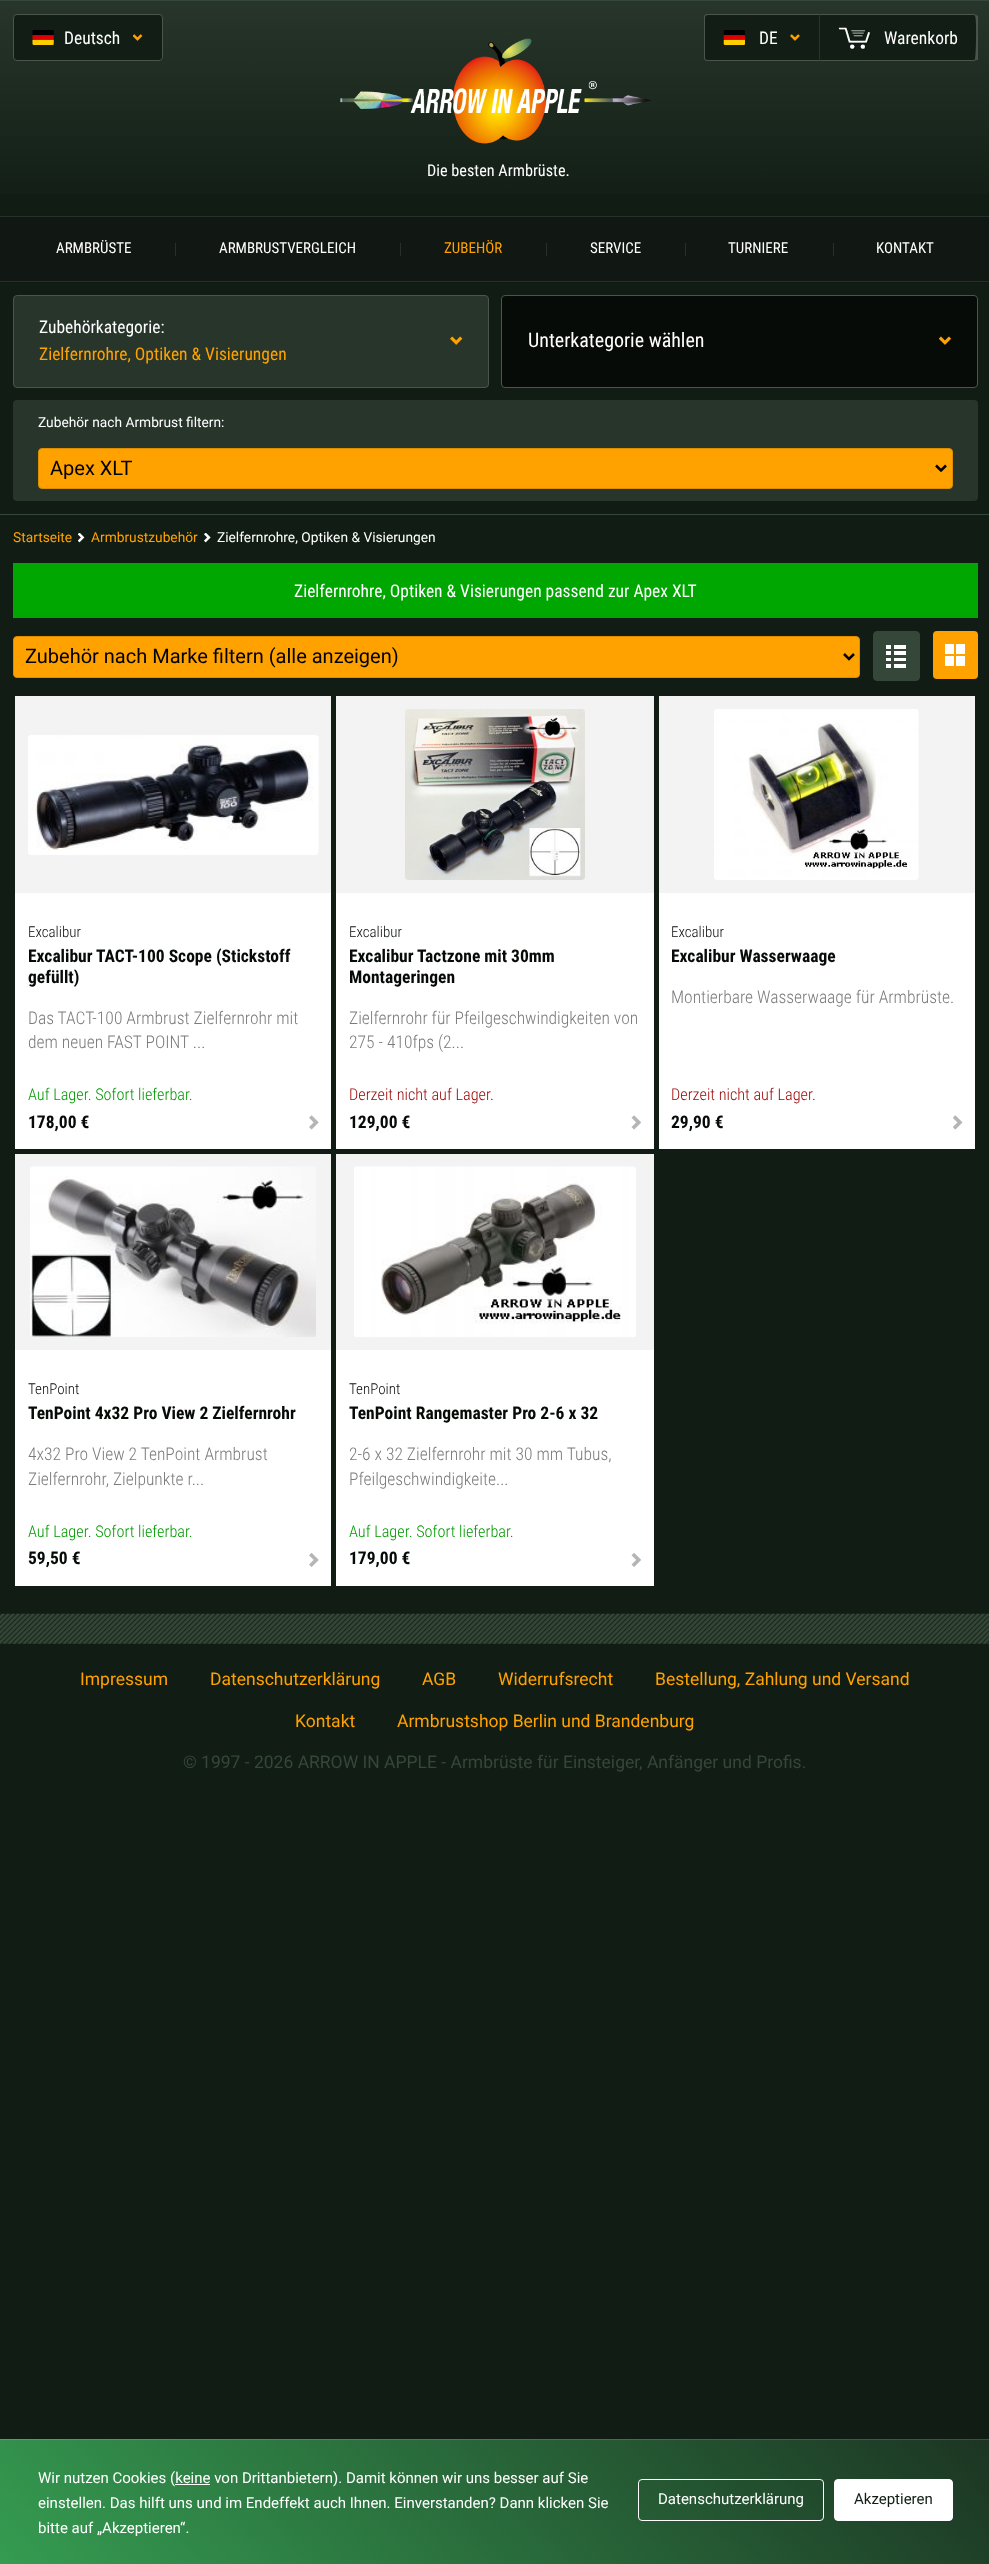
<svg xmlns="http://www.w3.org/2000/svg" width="989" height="2564">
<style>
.a{font:17.5px Roboto Condensed;fill:#fff}
.b{font:16.25px Roboto Condensed;fill:#fff}
.c{font:15px Roboto Condensed;fill:#fff}
.d{font:15px Roboto Condensed;fill:#ffa200}
.e{font:17.5px Roboto Condensed;fill:#ffa200}
.f{font:20px Roboto Condensed;fill:#fff}
.g{font:13.75px Roboto;fill:#fff}
.h{font:20px Roboto;fill:#000}
.i{font:13.75px Roboto;fill:#ffa200}
.j{font:300 15px Roboto Condensed;fill:#070b08}
.k{font:bold 17.5px Roboto Condensed;fill:#070b08}
.l{font:300 17.5px Roboto Condensed;fill:#7b7b7b}
.m{font:300 16.25px Roboto Condensed;fill:#090}
.n{font:300 16.25px Roboto Condensed;fill:#900}
.o{font:17.5px Roboto;fill:#ffa200}
.p{font:17.5px Roboto;fill:#354738}
.q{font:15px Roboto;fill:#fff}
.r{font:15px Roboto;fill:#111d14}
</style>
<defs>
<linearGradient id="g1" gradientUnits="userSpaceOnUse" x1="495" y1="1.2" x2="495" y2="216"><stop offset="0" stop-color="#27352a"/><stop offset="1" stop-color="#111d14"/></linearGradient>
<linearGradient id="g2" gradientUnits="userSpaceOnUse" x1="216" y1="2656" x2="774" y2="2099"><stop offset="0" stop-color="#49a662"/><stop offset="1" stop-color="#334939"/></linearGradient>
<linearGradient id="g3" gradientUnits="userSpaceOnUse" x1="216" y1="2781" x2="774" y2="2224"><stop offset="0" stop-color="#359c51"/><stop offset="1" stop-color="#1c3523"/></linearGradient>
</defs>
<rect width="100%" height="100%" fill="#111d14"/>
<path fill="#354738" d="M0 0h989v1H0z"/>
<path fill="url(#g1)" d="M0 1h989v193H0z"/>
<rect fill="#121e15" stroke="#4a554c" x="13.5" y="14.5" width="149" height="46" rx="3.5"/>
<image href="1.png" x="32" y="30" width="22" height="15"/>
<image href="2.png" x="133" y="34" width="10" height="7"/>
<path fill="#121e15" d="M708 14h111v47h-111c-2 0-4-2-4-4v-39c0-2 2-4 4-4z"/>
<path fill="#4a554c" fill-rule="evenodd" d="M708 14h111v47h-111c-3 0-4-1-4-3v-40c0-3 1-4 4-4zm0 1h111v45h-111c-2 0-3-1-3-2v-40c0-2 1-3 3-3z"/>
<image href="3.png" x="723" y="30" width="22" height="15"/>
<image href="4.png" x="790" y="34" width="10" height="7"/>
<path fill="#121e15" d="M819 14h155c2 0 4 2 4 4v39c0 2-2 4-4 4h-155z"/>
<path fill="#4a554c" d="M819 14l1 1h154l1 1l2-1l-3-1z"/>
<path fill="#4a554c" d="M977 15l1 1v44h-1l-2-1c1-1 2-41 0-43z"/>
<path fill="#4a554c" d="M977 60l-3 1h-155l1-1h154l1-1z"/>
<path fill="#ffffff1a" d="M820 15l-1-1v47l1-1z"/>
<image href="5.png" x="838" y="27" width="33" height="23"/>
<image href="6.png" x="340" y="38" width="311" height="106"/>
<path fill="#111712" d="M0 217h989v66H0z"/>
<path fill="#273029" d="M0 216h989v1H0z"/>
<path fill="#273029" d="M0 281h989v1H0z"/>
<path fill="#292f2a" d="M175 243h1v13H175z"/>
<path fill="#292f2a" d="M400 243h1v13H400z"/>
<path fill="#292f2a" d="M546 243h1v13H546z"/>
<path fill="#292f2a" d="M685 243h1v13H685z"/>
<path fill="#292f2a" d="M833 243h1v13H833z"/>
<path fill="#354738" d="M0 514h989v1H0z"/>
<rect fill="#27352a" stroke="#4a554c" x="13.5" y="295.5" width="475" height="92" rx="3.5"/>
<image href="7.png" x="450" y="336" width="13" height="9"/>
<rect fill="#070b08" stroke="#4a554c" x="501.5" y="295.5" width="476" height="92" rx="3.5"/>
<image href="8.png" x="939" y="336" width="12" height="9"/>
<rect fill="#27352a" x="13" y="400" width="965" height="101" rx="4"/>
<rect fill="#ffa200" stroke="#df8d00" x="38.5" y="448.5" width="914" height="40" rx="3.5"/>
<path fill="none" stroke="#000" stroke-width="2.5" d="M936 465.5l5 5l5-5"/>
<image href="9.png" x="78" y="533" width="7" height="10"/>
<image href="10.png" x="204" y="533" width="7" height="10"/>
<path fill="#00a700" d="M13 563h965v55H13z"/>
<rect fill="#ffa200" stroke="#df8d00" x="13.5" y="636.5" width="846" height="41" rx="3.5"/>
<path fill="none" stroke="#000" stroke-width="2.5" d="M844 654l5 5l5-5"/>
<rect fill="#354738" stroke="#354738" x="873.5" y="631.5" width="46" height="49" rx="3.5"/>
<image href="11.png" x="886" y="645" width="20" height="23"/>
<rect fill="#ffa200" x="933" y="631" width="45" height="48" rx="4"/>
<path fill="#fff" d="M945 644h9v10H945z"/>
<path fill="#fff" d="M956 644h9v10H956z"/>
<path fill="#fff" d="M945 656h9v10H945z"/>
<path fill="#fff" d="M956 656h9v10H956z"/>
<path fill="#fff" d="M15 893h316v256H15z"/>
<path fill="#f3f3f3" d="M15 696h316v197H15z"/>
<image href="12.png" x="28" y="735" width="291" height="120"/>
<image href="13.png" x="309" y="1115" width="10" height="15"/>
<path fill="#fff" d="M336 893h318v256H336z"/>
<path fill="#f3f3f3" d="M336 696h318v197H336z"/>
<image href="14.png" x="405" y="709" width="180" height="171"/>
<image href="15.png" x="631" y="1115" width="10" height="15"/>
<path fill="#fff" d="M659 893h316v256H659z"/>
<path fill="#f3f3f3" d="M659 696h316v197H659z"/>
<image href="16.png" x="714" y="709" width="205" height="171"/>
<image href="17.png" x="953" y="1115" width="10" height="15"/>
<path fill="#fff" d="M15 1350h316v236H15z"/>
<path fill="#f3f3f3" d="M15 1154h316v196H15z"/>
<image href="18.png" x="30" y="1166" width="286" height="171"/>
<image href="19.png" x="309" y="1553" width="10" height="14"/>
<path fill="#fff" d="M336 1350h318v236H336z"/>
<path fill="#f3f3f3" d="M336 1154h318v196H336z"/>
<image href="20.png" x="354" y="1166" width="282" height="171"/>
<image href="21.png" x="631" y="1553" width="10" height="14"/>
<image href="22.png" x="0" y="1613" width="989" height="31"/>
<path fill="url(#g2)" d="M0 2439h989v1H0z"/>
<path fill="url(#g3)" d="M0 2440h989v124H0z"/>
<path fill="#fff" d="M175 2484h35v1H175z"/>
<rect fill="none" stroke="#fff" x="638.5" y="2479.5" width="185" height="41" rx="3.5"/>
<rect fill="#fff" stroke="#fff" x="834.5" y="2479.5" width="118" height="41" rx="3.5"/>
<text class="a" x="64" y="44">Deutsch</text>
<text class="a" x="759" y="44">DE</text>
<text class="a" x="884" y="44">Warenkorb</text>
<text class="b" x="427" y="176">Die besten Armbrüste.</text>
<text class="c" x="56" y="253">ARMBRÜSTE</text>
<text class="c" x="219" y="253">ARMBRUSTVERGLEICH</text>
<text class="d" x="444" y="253">ZUBEHÖR</text>
<text class="c" x="590" y="253">SERVICE</text>
<text class="c" x="728" y="253">TURNIERE</text>
<text class="c" x="876" y="253">KONTAKT</text>
<text class="a" x="39" y="333">Zubehörkategorie:</text>
<text class="e" x="39" y="360">Zielfernrohre, Optiken &amp; Visierungen</text>
<text class="f" x="528" y="347">Unterkategorie wählen</text>
<text class="g" x="38" y="427">Zubehör nach Armbrust filtern:</text>
<text class="h" x="50" y="475">Apex XLT</text>
<text class="i" x="13" y="542">Startseite</text>
<text class="i" x="91" y="542">Armbrustzubehör</text>
<text class="g" x="217" y="542">Zielfernrohre, Optiken &amp; Visierungen</text>
<text class="a" x="294" y="597">Zielfernrohre, Optiken &amp; Visierungen passend zur Apex XLT</text>
<text class="h" x="25" y="663">Zubehör nach Marke filtern (alle anzeigen)</text>
<text class="j" x="28" y="937">Excalibur</text>
<text class="k" x="28" y="962">Excalibur TACT-100 Scope (Stickstoff</text>
<text class="k" x="28" y="983">gefüllt)</text>
<text class="l" x="28" y="1024">Das TACT-100 Armbrust Zielfernrohr mit</text>
<text class="l" x="28" y="1048">dem neuen FAST POINT ...</text>
<text class="m" x="28" y="1100">Auf Lager. Sofort lieferbar.</text>
<text class="k" x="28" y="1128">178,00 €</text>
<text class="j" x="349" y="937">Excalibur</text>
<text class="k" x="349" y="962">Excalibur Tactzone mit 30mm</text>
<text class="k" x="349" y="983">Montageringen</text>
<text class="l" x="349" y="1024">Zielfernrohr für Pfeilgeschwindigkeiten von</text>
<text class="l" x="349" y="1048">275 - 410fps (2...</text>
<text class="n" x="349" y="1100">Derzeit nicht auf Lager.</text>
<text class="k" x="349" y="1128">129,00 €</text>
<text class="j" x="671" y="937">Excalibur</text>
<text class="k" x="671" y="962">Excalibur Wasserwaage</text>
<text class="l" x="671" y="1003">Montierbare Wasserwaage für Armbrüste.</text>
<text class="n" x="671" y="1100">Derzeit nicht auf Lager.</text>
<text class="k" x="671" y="1128">29,90 €</text>
<text class="j" x="28" y="1394">TenPoint</text>
<text class="k" x="28" y="1419">TenPoint 4x32 Pro View 2 Zielfernrohr</text>
<text class="l" x="28" y="1460">4x32 Pro View 2 TenPoint Armbrust</text>
<text class="l" x="28" y="1485">Zielfernrohr, Zielpunkte r...</text>
<text class="m" x="28" y="1537">Auf Lager. Sofort lieferbar.</text>
<text class="k" x="28" y="1564">59,50 €</text>
<text class="j" x="349" y="1394">TenPoint</text>
<text class="k" x="349" y="1419">TenPoint Rangemaster Pro 2-6 x 32</text>
<text class="l" x="349" y="1460">2-6 x 32 Zielfernrohr mit 30 mm Tubus,</text>
<text class="l" x="349" y="1485">Pfeilgeschwindigkeite...</text>
<text class="m" x="349" y="1537">Auf Lager. Sofort lieferbar.</text>
<text class="k" x="349" y="1564">179,00 €</text>
<text class="o" x="80" y="1685">Impressum</text>
<text class="o" x="210" y="1685">Datenschutzerklärung</text>
<text class="o" x="422" y="1685">AGB</text>
<text class="o" x="498" y="1685">Widerrufsrecht</text>
<text class="o" x="655" y="1685">Bestellung, Zahlung und Versand</text>
<text class="o" x="295" y="1727">Kontakt</text>
<text class="o" x="397" y="1727">Armbrustshop Berlin und Brandenburg</text>
<text class="p" x="183" y="1768">© 1997 - 2026 ARROW IN APPLE - Armbrüste für Einsteiger, Anfänger und Profis.</text>
<text class="q" x="38" y="2483">Wir nutzen Cookies (keine von Drittanbietern). Damit können wir uns besser auf Sie</text>
<text class="q" x="38" y="2508">einstellen. Das hilft uns und im Endeffekt auch Ihnen. Einverstanden? Dann klicken Sie</text>
<text class="q" x="38" y="2533">bitte auf „Akzeptieren“.</text>
<text class="q" x="658" y="2504">Datenschutzerklärung</text>
<text class="r" x="854" y="2504">Akzeptieren</text>
</svg>
